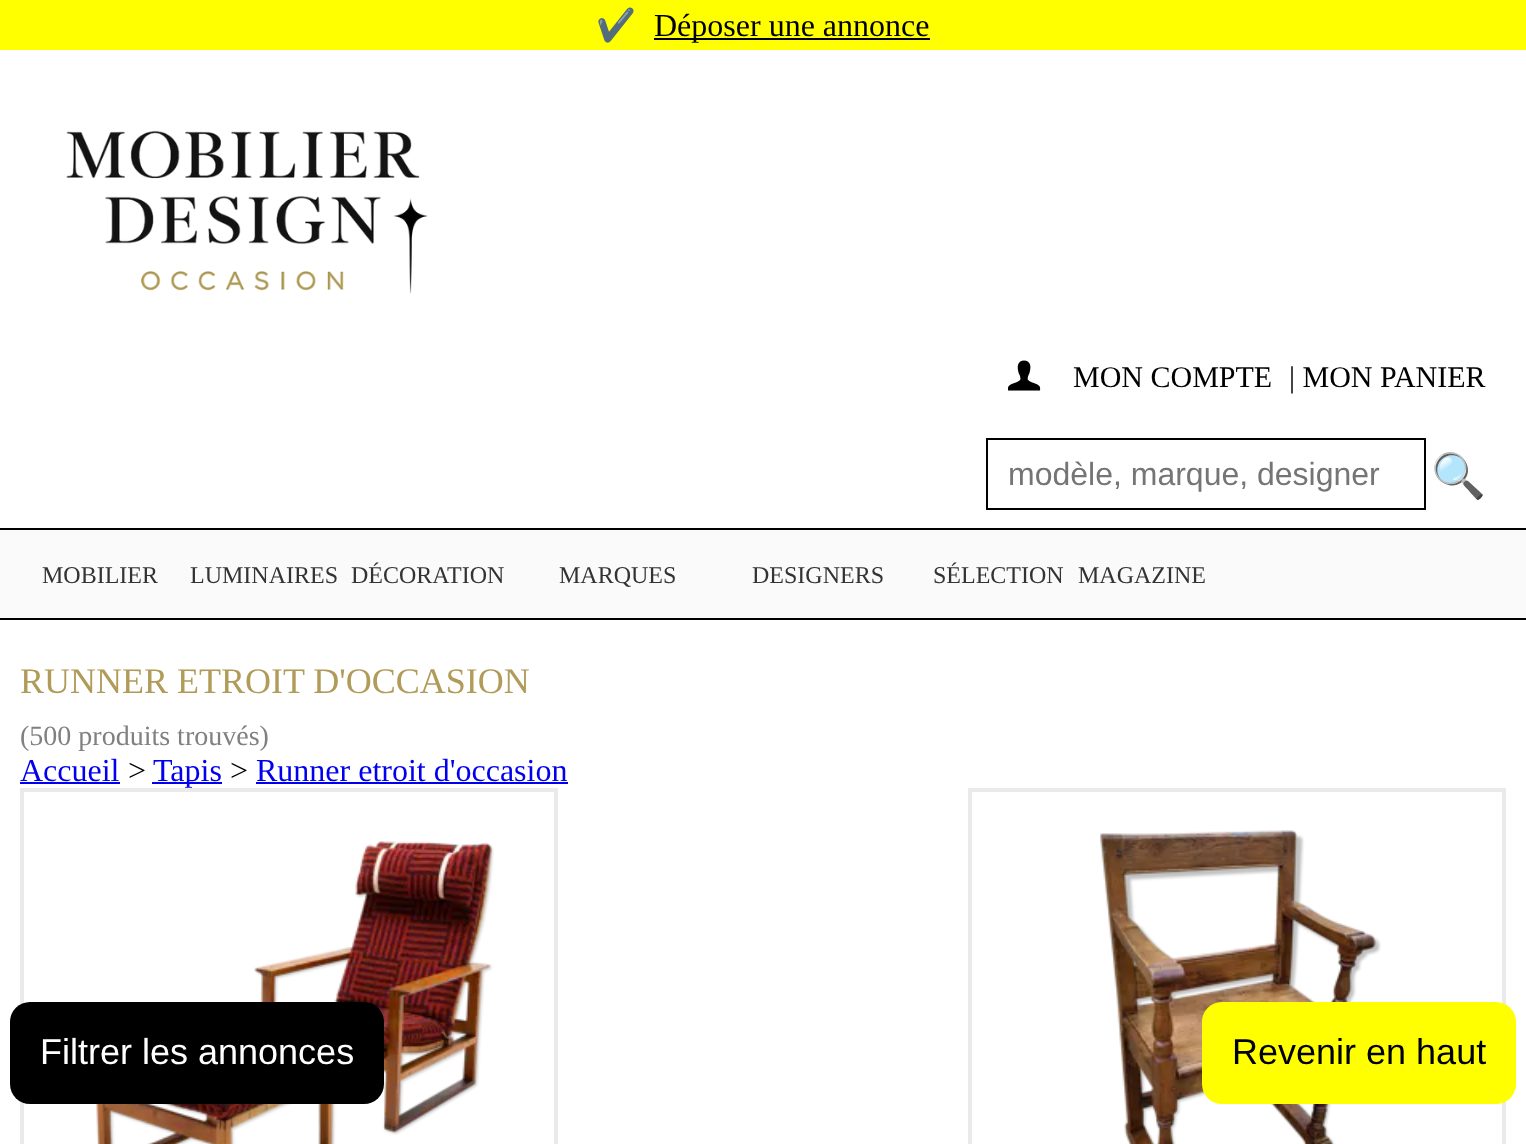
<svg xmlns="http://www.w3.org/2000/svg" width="1526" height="1144">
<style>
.a{font:32px Noto Color Emoji;fill:#000}
.b{font:32px Liberation Serif;fill:#000}
.c{font:30px Liberation Serif;fill:#000}
.d{font:32px Liberation Sans;fill:#757575}
.e{font:44px Noto Color Emoji;fill:#000}
.f{font:24px Liberation Serif;fill:#333}
.g{font:36px Liberation Serif;fill:#b09b58}
.h{font:28px Liberation Serif;fill:#808080}
.i{font:32px Liberation Serif;fill:#00e}
.j{font:36px Liberation Sans;fill:#fff}
.k{font:36px Liberation Sans;fill:#000}
</style>
<rect width="100%" height="100%" fill="#fff"/>
<path fill="#ff0" d="M0 0h1526v50H0z"/>
<path fill="#000" d="M654 38h276v2H654z"/>
<image href="1.png" x="66" y="130" width="362" height="164"/>
<image href="2.png" x="1008" y="360" width="33" height="31"/>
<path fill="none" stroke="#000" stroke-width="2" d="M987 439h438v70H987z"/>
<path fill="#fafafa" d="M0 530h1526v88H0z"/>
<path fill="#000" d="M0 528h1526v2H0z"/>
<path fill="#000" d="M0 618h1526v2H0z"/>
<path fill="#00e" d="M20 782h100v2H20z"/>
<path fill="#00e" d="M152 782h70v2H152z"/>
<path fill="#00e" d="M256 782h312v2H256z"/>
<path fill="none" stroke="#eaeaea" stroke-width="4" d="M22 790h534v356H22z"/>
<image href="3.png" x="96" y="841" width="398" height="303"/>
<path fill="none" stroke="#eaeaea" stroke-width="4" d="M970 790h534v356H970z"/>
<image href="4.png" x="1100" y="830" width="281" height="314"/>
<rect fill="#000" x="10" y="1002" width="374" height="102" rx="20"/>
<rect fill="#ff0" x="1202" y="1002" width="314" height="102" rx="20"/>
<text class="a" x="596" y="36">✔️</text>
<text class="b" x="654" y="36">Déposer une annonce</text>
<text class="c" x="1073" y="387">MON COMPTE</text>
<text class="c" x="1289" y="387">| MON PANIER</text>
<text class="d" x="1008" y="485">modèle, marque, designer</text>
<text class="e" x="1431" y="491">🔍</text>
<text class="f" x="42" y="583">MOBILIER</text>
<text class="f" x="190" y="583">LUMINAIRES</text>
<text class="f" x="351" y="583">DÉCORATION</text>
<text class="f" x="559" y="583">MARQUES</text>
<text class="f" x="752" y="583">DESIGNERS</text>
<text class="f" x="933" y="583">SÉLECTION</text>
<text class="f" x="1078" y="583">MAGAZINE</text>
<text class="g" x="20" y="693">RUNNER ETROIT D'OCCASION</text>
<text class="h" x="20" y="745">(500 produits trouvés)</text>
<text class="i" x="20" y="781">Accueil</text>
<text class="b" x="128" y="781">&gt;</text>
<text class="i" x="153" y="781">Tapis</text>
<text class="b" x="230" y="781">&gt;</text>
<text class="i" x="256" y="781">Runner etroit d'occasion</text>
<text class="j" x="40" y="1064">Filtrer les annonces</text>
<text class="k" x="1232" y="1064">Revenir en haut</text>
</svg>
